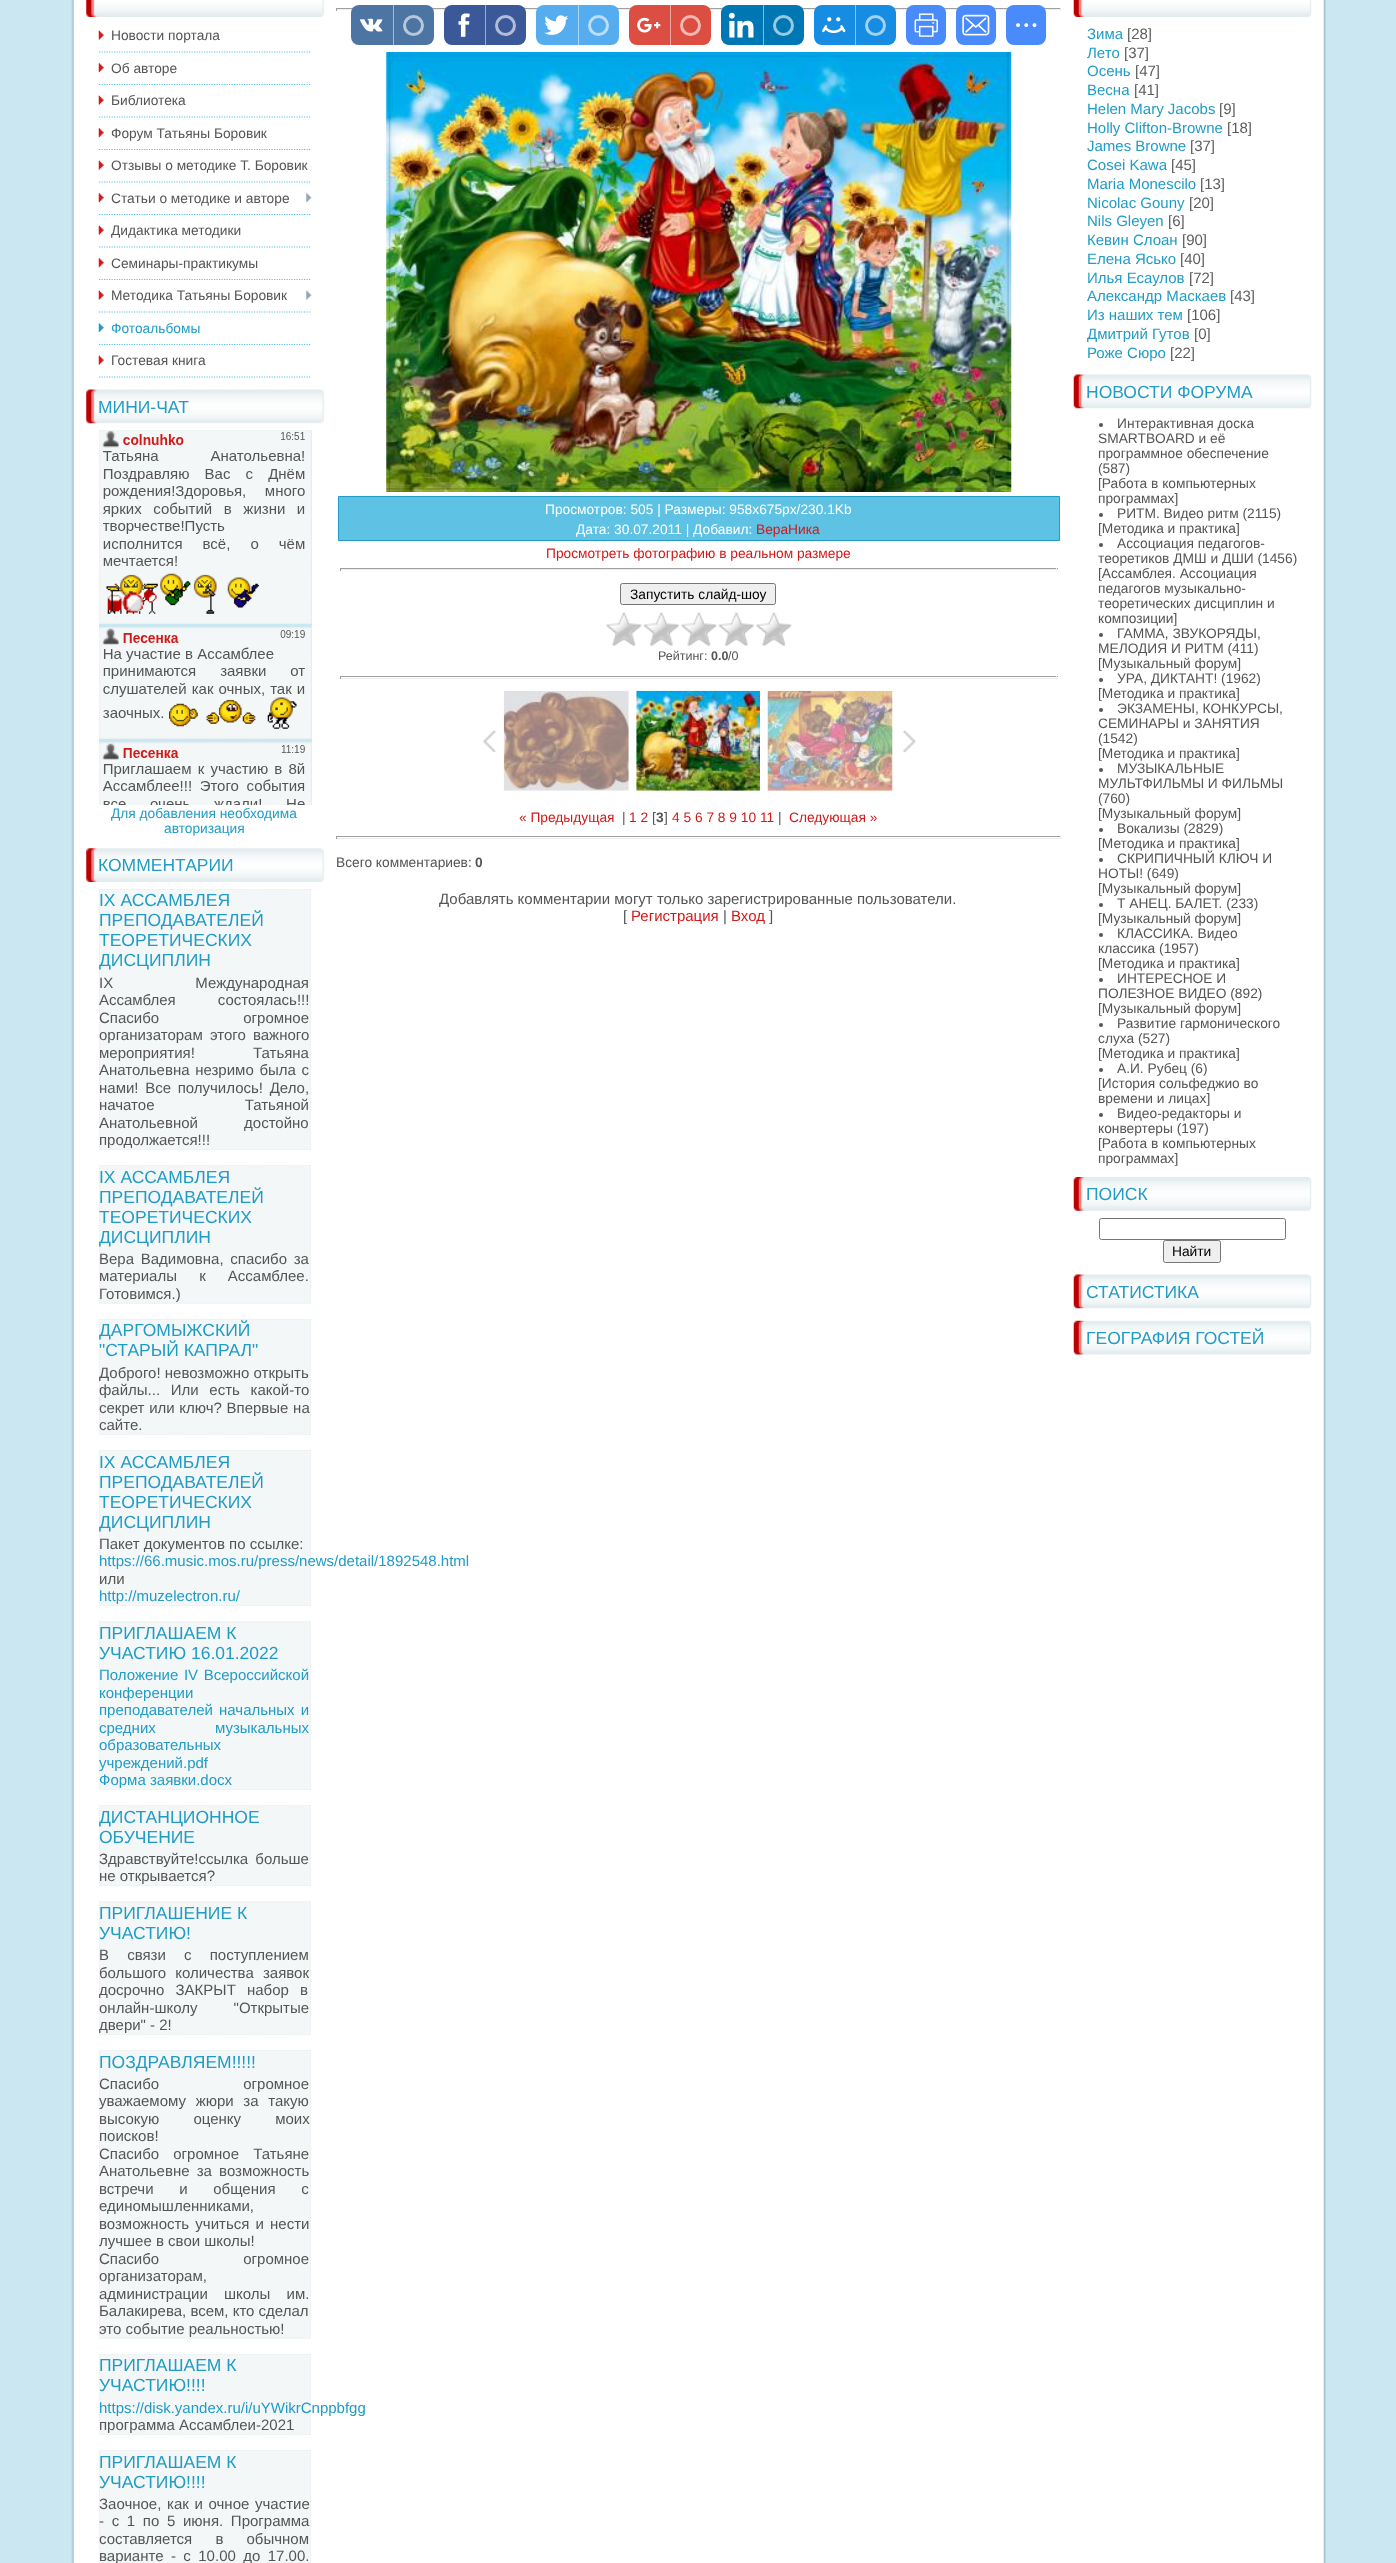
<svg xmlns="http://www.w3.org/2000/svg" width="1396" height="2563">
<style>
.a{font:13.75px Liberation Sans;fill:#555}
.b{font:13.75px Liberation Sans;fill:#219cc5}
.c{font:17.5px Liberation Sans;fill:#219cc5}
.d{font:15px Liberation Sans;fill:#555}
.e{font:15px Liberation Sans;fill:#219cc5}
.f{font:13.75px Liberation Sans;fill:#fff}
.g{font:13.75px Liberation Sans;fill:#d21918}
.h{font:13.75px Liberation Sans;fill:#000}
.i{font:12.5px Liberation Sans;fill:#555}
.j{font:bold 12.5px Liberation Sans;fill:#555}
.k{font:bold 13.75px Liberation Sans;fill:#555}
.l{font:15px Liberation Sans;fill:#d21918}
.m{font:15px Liberation Sans;fill:#5d5d5d}
</style>
<rect width="100%" height="100%" fill="#cbe7f1"/>
<image href="10.png" x="71" y="0" width="1255" height="2563"/>
<path fill="#9f9f9f" d="M336 8h725v1H336z"/>
<path fill="#eee" d="M1060 8h1v3H1060z"/>
<path fill="#eee" d="M336 9h725v1H336z"/>
<rect fill="#4d75a3" x="351" y="5" width="83" height="40" rx="8"/>
<image href="1.png" x="360" y="18" width="23" height="14"/>
<path fill="#a6bad1" d="M393 5h1v40H393z"/>
<circle fill="none" stroke="#b8c8da" stroke-width="3" cx="413.5" cy="25.5" r="9"/>
<rect fill="#3b5998" x="444" y="5" width="82" height="40" rx="8"/>
<image href="2.png" x="458" y="13" width="12" height="24"/>
<path fill="#9daccc" d="M485 5h1v40H485z"/>
<circle fill="none" stroke="#b1bdd6" stroke-width="3" cx="505.5" cy="25.5" r="9"/>
<rect fill="#55acee" x="536" y="5" width="83" height="40" rx="8"/>
<image href="3.png" x="544" y="15" width="25" height="20"/>
<path fill="#aad6f7" d="M578 5h1v40H578z"/>
<circle fill="none" stroke="#bbdef8" stroke-width="3" cx="598.5" cy="25.5" r="9"/>
<rect fill="#dc4e41" x="629" y="5" width="82" height="40" rx="8"/>
<image href="4.png" x="637" y="17" width="24" height="16"/>
<path fill="#eea7a0" d="M670 5h1v40H670z"/>
<circle fill="none" stroke="#f1b8b3" stroke-width="3" cx="690.5" cy="25.5" r="9"/>
<rect fill="#0077b5" x="721" y="5" width="83" height="40" rx="8"/>
<image href="5.png" x="728" y="12" width="26" height="26"/>
<path fill="#80bbda" d="M763 5h1v40H763z"/>
<circle fill="none" stroke="#99c9e1" stroke-width="3" cx="783.5" cy="25.5" r="9"/>
<rect fill="#168de2" x="814" y="5" width="82" height="40" rx="8"/>
<image href="6.png" x="822" y="17" width="24" height="17"/>
<path fill="#8bc6f1" d="M855 5h1v40H855z"/>
<circle fill="none" stroke="#a2d1f3" stroke-width="3" cx="875.5" cy="25.5" r="9"/>
<rect fill="#498bfa" x="906" y="5" width="40" height="40" rx="8"/>
<image href="7.png" x="914" y="13" width="24" height="24"/>
<rect fill="#498bfa" x="956" y="5" width="40" height="40" rx="8"/>
<image href="8.png" x="962" y="14" width="28" height="22"/>
<rect fill="#498bfa" x="1006" y="5" width="40" height="40" rx="8"/>
<image href="9.png" x="1016" y="23" width="21" height="5"/>
<image href="11.png" x="86" y="0" width="238" height="17"/>
<path fill="none" stroke="#5ec2e4" stroke-width="1.2" stroke-dasharray="1.25 1.25" d="M99 52h212"/>
<image href="12.png" x="98" y="30" width="6" height="10"/>
<path fill="none" stroke="#5ec2e4" stroke-width="1.2" stroke-dasharray="1.25 1.25" d="M99 84.5h212"/>
<image href="13.png" x="98" y="63" width="6" height="10"/>
<path fill="none" stroke="#5ec2e4" stroke-width="1.2" stroke-dasharray="1.25 1.25" d="M99 117h212"/>
<image href="12.png" x="98" y="95" width="6" height="10"/>
<path fill="none" stroke="#5ec2e4" stroke-width="1.2" stroke-dasharray="1.25 1.25" d="M99 149.5h212"/>
<image href="13.png" x="98" y="128" width="6" height="10"/>
<path fill="none" stroke="#5ec2e4" stroke-width="1.2" stroke-dasharray="1.25 1.25" d="M99 182h212"/>
<image href="12.png" x="98" y="160" width="6" height="10"/>
<path fill="none" stroke="#5ec2e4" stroke-width="1.2" stroke-dasharray="1.25 1.25" d="M99 214.5h212"/>
<image href="13.png" x="98" y="193" width="6" height="10"/>
<image href="14.png" x="306" y="193" width="6" height="9"/>
<path fill="none" stroke="#5ec2e4" stroke-width="1.2" stroke-dasharray="1.25 1.25" d="M99 247h212"/>
<image href="12.png" x="98" y="225" width="6" height="10"/>
<path fill="none" stroke="#5ec2e4" stroke-width="1.2" stroke-dasharray="1.25 1.25" d="M99 279.5h212"/>
<image href="13.png" x="98" y="258" width="6" height="10"/>
<path fill="none" stroke="#5ec2e4" stroke-width="1.2" stroke-dasharray="1.25 1.25" d="M99 312h212"/>
<image href="12.png" x="98" y="290" width="6" height="10"/>
<image href="15.png" x="306" y="290" width="6" height="10"/>
<path fill="none" stroke="#5ec2e4" stroke-width="1.2" stroke-dasharray="1.25 1.25" d="M99 344.5h212"/>
<image href="16.png" x="98" y="323" width="6" height="9"/>
<path fill="none" stroke="#5ec2e4" stroke-width="1.2" stroke-dasharray="1.25 1.25" d="M99 377h212"/>
<image href="12.png" x="98" y="355" width="6" height="10"/>
<image href="17.png" x="86" y="389" width="238" height="35"/>
<image href="18.png" x="99" y="430" width="213" height="375"/>
<image href="19.png" x="86" y="848" width="238" height="34"/>
<path fill="#f4f7f8" d="M99 889h212v261H99z"/>
<path fill="none" stroke="#eceff0" stroke-width="1.2" stroke-dasharray="1.25 1.25" d="M99 889.5h212"/>
<path fill="none" stroke="#eceff0" stroke-width="1.2" stroke-dasharray="1.25 1.25" d="M310.5 889v261"/>
<path fill="none" stroke="#eceff0" stroke-width="1.2" stroke-dasharray="1.25 1.25" d="M99 1149.5h212"/>
<path fill="none" stroke="#eceff0" stroke-width="1.2" stroke-dasharray="1.25 1.25" d="M99.5 889v261"/>
<path fill="#f4f7f8" d="M99 1165h212v139H99z"/>
<path fill="none" stroke="#eceff0" stroke-width="1.2" stroke-dasharray="1.25 1.25" d="M99 1165.5h212"/>
<path fill="none" stroke="#eceff0" stroke-width="1.2" stroke-dasharray="1.25 1.25" d="M310.5 1165v139"/>
<path fill="none" stroke="#eceff0" stroke-width="1.2" stroke-dasharray="1.25 1.25" d="M99 1303h212"/>
<path fill="none" stroke="#eceff0" stroke-width="1.2" stroke-dasharray="1.25 1.25" d="M99.5 1165v139"/>
<path fill="#f4f7f8" d="M99 1319h212v116H99z"/>
<path fill="none" stroke="#eceff0" stroke-width="1.2" stroke-dasharray="1.25 1.25" d="M99 1319.5h212"/>
<path fill="none" stroke="#eceff0" stroke-width="1.2" stroke-dasharray="1.25 1.25" d="M310.5 1319v116"/>
<path fill="none" stroke="#eceff0" stroke-width="1.2" stroke-dasharray="1.25 1.25" d="M99 1434.5h212"/>
<path fill="none" stroke="#eceff0" stroke-width="1.2" stroke-dasharray="1.25 1.25" d="M99.5 1319v116"/>
<path fill="#f4f7f8" d="M99 1450h212v156H99z"/>
<path fill="none" stroke="#eceff0" stroke-width="1.2" stroke-dasharray="1.25 1.25" d="M99 1450.5h212"/>
<path fill="none" stroke="#eceff0" stroke-width="1.2" stroke-dasharray="1.25 1.25" d="M310.5 1450v156"/>
<path fill="none" stroke="#eceff0" stroke-width="1.2" stroke-dasharray="1.25 1.25" d="M99 1605.5h212"/>
<path fill="none" stroke="#eceff0" stroke-width="1.2" stroke-dasharray="1.25 1.25" d="M99.5 1450v156"/>
<path fill="#f4f7f8" d="M99 1621h212v169H99z"/>
<path fill="none" stroke="#eceff0" stroke-width="1.2" stroke-dasharray="1.25 1.25" d="M99 1622h212"/>
<path fill="none" stroke="#eceff0" stroke-width="1.2" stroke-dasharray="1.25 1.25" d="M310.5 1621v169"/>
<path fill="none" stroke="#eceff0" stroke-width="1.2" stroke-dasharray="1.25 1.25" d="M99 1789.5h212"/>
<path fill="none" stroke="#eceff0" stroke-width="1.2" stroke-dasharray="1.25 1.25" d="M99.5 1621v169"/>
<path fill="#f4f7f8" d="M99 1805h212v81H99z"/>
<path fill="none" stroke="#eceff0" stroke-width="1.2" stroke-dasharray="1.25 1.25" d="M99 1805.5h212"/>
<path fill="none" stroke="#eceff0" stroke-width="1.2" stroke-dasharray="1.25 1.25" d="M310.5 1805v81"/>
<path fill="none" stroke="#eceff0" stroke-width="1.2" stroke-dasharray="1.25 1.25" d="M99 1885.5h212"/>
<path fill="none" stroke="#eceff0" stroke-width="1.2" stroke-dasharray="1.25 1.25" d="M99.5 1805v81"/>
<path fill="#f4f7f8" d="M99 1901h212v134H99z"/>
<path fill="none" stroke="#eceff0" stroke-width="1.2" stroke-dasharray="1.25 1.25" d="M99 1902h212"/>
<path fill="none" stroke="#eceff0" stroke-width="1.2" stroke-dasharray="1.25 1.25" d="M310.5 1901v134"/>
<path fill="none" stroke="#eceff0" stroke-width="1.2" stroke-dasharray="1.25 1.25" d="M99 2034.5h212"/>
<path fill="none" stroke="#eceff0" stroke-width="1.2" stroke-dasharray="1.25 1.25" d="M99.5 1901v134"/>
<path fill="#f4f7f8" d="M99 2050h212v289H99z"/>
<path fill="none" stroke="#eceff0" stroke-width="1.2" stroke-dasharray="1.25 1.25" d="M99 2050.5h212"/>
<path fill="none" stroke="#eceff0" stroke-width="1.2" stroke-dasharray="1.25 1.25" d="M310.5 2050v289"/>
<path fill="none" stroke="#eceff0" stroke-width="1.2" stroke-dasharray="1.25 1.25" d="M99 2338h212"/>
<path fill="none" stroke="#eceff0" stroke-width="1.2" stroke-dasharray="1.25 1.25" d="M99.5 2050v289"/>
<path fill="#f4f7f8" d="M99 2354h212v81H99z"/>
<path fill="none" stroke="#eceff0" stroke-width="1.2" stroke-dasharray="1.25 1.25" d="M99 2354.5h212"/>
<path fill="none" stroke="#eceff0" stroke-width="1.2" stroke-dasharray="1.25 1.25" d="M310.5 2354v81"/>
<path fill="none" stroke="#eceff0" stroke-width="1.2" stroke-dasharray="1.25 1.25" d="M99 2434.5h212"/>
<path fill="none" stroke="#eceff0" stroke-width="1.2" stroke-dasharray="1.25 1.25" d="M99.5 2354v81"/>
<path fill="#f4f7f8" d="M99 2450h212v113H99z"/>
<path fill="none" stroke="#eceff0" stroke-width="1.2" stroke-dasharray="1.25 1.25" d="M99 2450.5h212"/>
<path fill="none" stroke="#eceff0" stroke-width="1.2" stroke-dasharray="1.25 1.25" d="M310.5 2450v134"/>
<path fill="none" stroke="#eceff0" stroke-width="1.2" stroke-dasharray="1.25 1.25" d="M99.5 2450v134"/>
<path fill="#9f9f9f" d="M336 8h1v3H336z"/>
<image href="20.png" x="386" y="52" width="626" height="440"/>
<path fill="#5ec2e4" stroke="#219cc5" d="M338.5 496.5h721v44H338.5z"/>
<path fill="#9f9f9f" d="M340 568h718v1H340z"/>
<path fill="#eee" d="M1056 568h1v3H1056z"/>
<path fill="#eee" d="M340 569h718v1H340z"/>
<path fill="#9f9f9f" d="M340 568h1v3H340z"/>
<rect fill="#efefef" stroke="#767676" x="620.5" y="583.5" width="155" height="21" rx="2"/>
<image href="21.png" x="606" y="612" width="186" height="34"/>
<path fill="#9f9f9f" d="M340 676h718v1H340z"/>
<path fill="#eee" d="M1056 676h1v3H1056z"/>
<path fill="#eee" d="M340 678h718v1H340z"/>
<path fill="#9f9f9f" d="M340 676h1v3H340z"/>
<image href="22.png" x="482" y="730" width="14" height="23"/>
<image href="23.png" x="503" y="691" width="126" height="100"/>
<image href="24.png" x="636" y="690" width="124" height="101"/>
<image href="25.png" x="767" y="690" width="126" height="101"/>
<image href="26.png" x="902" y="730" width="14" height="23"/>
<path fill="#9f9f9f" d="M336 836h725v1H336z"/>
<path fill="#eee" d="M1060 836h1v3H1060z"/>
<path fill="#eee" d="M336 838h725v1H336z"/>
<path fill="#9f9f9f" d="M336 836h1v3H336z"/>
<image href="27.png" x="1073" y="0" width="239" height="17"/>
<image href="28.png" x="1073" y="374" width="239" height="35"/>
<circle fill="#555" cx="1101" cy="425" r="2"/>
<circle fill="#555" cx="1101" cy="515" r="2"/>
<circle fill="#555" cx="1101" cy="545" r="2"/>
<circle fill="#555" cx="1101" cy="635" r="2"/>
<circle fill="#555" cx="1101" cy="680" r="2"/>
<circle fill="#555" cx="1101" cy="710" r="2"/>
<circle fill="#555" cx="1101" cy="770" r="2"/>
<circle fill="#555" cx="1101" cy="830" r="2"/>
<circle fill="#555" cx="1101" cy="860" r="2"/>
<circle fill="#555" cx="1101" cy="905" r="2"/>
<circle fill="#555" cx="1101" cy="935" r="2"/>
<circle fill="#555" cx="1101" cy="980" r="2"/>
<circle fill="#555" cx="1101" cy="1025" r="2"/>
<circle fill="#555" cx="1101" cy="1070" r="2"/>
<circle fill="#555" cx="1101" cy="1115" r="2"/>
<image href="29.png" x="1073" y="1177" width="239" height="34"/>
<rect fill="none" stroke="#767676" x="1099.5" y="1218.5" width="186" height="21" rx="2"/>
<rect fill="#efefef" stroke="#767676" x="1163.5" y="1240.5" width="57" height="22" rx="2"/>
<image href="28.png" x="1073" y="1274" width="239" height="35"/>
<image href="30.png" x="1073" y="1320" width="239" height="35"/>
<text class="a" x="111" y="40">Новости портала</text>
<text class="a" x="111" y="73">Об авторе</text>
<text class="a" x="111" y="105">Библиотека</text>
<text class="a" x="111" y="138">Форум Татьяны Боровик</text>
<text class="a" x="111" y="170">Отзывы о методике Т. Боровик</text>
<text class="a" x="111" y="203">Статьи о методике и авторе</text>
<text class="a" x="111" y="235">Дидактика методики</text>
<text class="a" x="111" y="268">Семинары-практикумы</text>
<text class="a" x="111" y="300">Методика Татьяны Боровик</text>
<text class="b" x="111" y="333">Фотоальбомы</text>
<text class="a" x="111" y="365">Гостевая книга</text>
<text class="c" x="98" y="413">МИНИ-ЧАТ</text>
<text class="b" x="111" y="818">Для добавления необходима</text>
<text class="b" x="164" y="833">авторизация</text>
<text class="c" x="98" y="871">КОММЕНТАРИИ</text>
<text class="c" x="99" y="906">IX АССАМБЛЕЯ</text>
<text class="c" x="99" y="926">ПРЕПОДАВАТЕЛЕЙ</text>
<text class="c" x="99" y="946">ТЕОРЕТИЧЕСКИХ</text>
<text class="c" x="99" y="966">ДИСЦИПЛИН</text>
<text class="d" x="99" y="988" word-spacing="78">IX Международная</text>
<text class="d" x="99" y="1005" word-spacing="38">Ассамблея состоялась!!!</text>
<text class="d" x="99" y="1023" word-spacing="80">Спасибо огромное</text>
<text class="d" x="99" y="1040" word-spacing="3">организаторам этого важного</text>
<text class="d" x="99" y="1058" word-spacing="54">мероприятия! Татьяна</text>
<text class="d" x="99" y="1075" word-spacing="1.5">Анатольевна незримо была с</text>
<text class="d" x="99" y="1093" word-spacing="2.5">нами! Все получилось! Дело,</text>
<text class="d" x="99" y="1110" word-spacing="86">начатое Татьяной</text>
<text class="d" x="99" y="1128" word-spacing="42">Анатольевной достойно</text>
<text class="d" x="99" y="1145">продолжается!!!</text>
<text class="c" x="99" y="1183">IX АССАМБЛЕЯ</text>
<text class="c" x="99" y="1203">ПРЕПОДАВАТЕЛЕЙ</text>
<text class="c" x="99" y="1223">ТЕОРЕТИЧЕСКИХ</text>
<text class="c" x="99" y="1243">ДИСЦИПЛИН</text>
<text class="d" x="99" y="1264" word-spacing="2.5">Вера Вадимовна, спасибо за</text>
<text class="d" x="99" y="1281" word-spacing="18">материалы к Ассамблее.</text>
<text class="d" x="99" y="1299">Готовимся.)</text>
<text class="c" x="99" y="1336">ДАРГОМЫЖСКИЙ</text>
<text class="c" x="99" y="1356">"СТАРЫЙ КАПРАЛ"</text>
<text class="d" x="99" y="1378">Доброго! невозможно открыть</text>
<text class="d" x="99" y="1395" word-spacing="6.5">файлы... Или есть какой-то</text>
<text class="d" x="99" y="1413" word-spacing="0.5">секрет или ключ? Впервые на</text>
<text class="d" x="99" y="1430">сайте.</text>
<text class="c" x="99" y="1468">IX АССАМБЛЕЯ</text>
<text class="c" x="99" y="1488">ПРЕПОДАВАТЕЛЕЙ</text>
<text class="c" x="99" y="1508">ТЕОРЕТИЧЕСКИХ</text>
<text class="c" x="99" y="1528">ДИСЦИПЛИН</text>
<text class="d" x="99" y="1549">Пакет документов по ссылке:</text>
<text class="e" x="99" y="1566">https://66.music.mos.ru/press/news/detail/1892548.html</text>
<text class="d" x="99" y="1584">или</text>
<text class="e" x="99" y="1601">http://muzelectron.ru/</text>
<text class="c" x="99" y="1639">ПРИГЛАШАЕМ К</text>
<text class="c" x="99" y="1659">УЧАСТИЮ 16.01.2022</text>
<text class="e" x="99" y="1680" word-spacing="1.5">Положение IV Всероссийской</text>
<text class="e" x="99" y="1698">конференции</text>
<text class="e" x="99" y="1715" word-spacing="2">преподавателей начальных и</text>
<text class="e" x="99" y="1733" word-spacing="55">средних музыкальных</text>
<text class="e" x="99" y="1750">образовательных</text>
<text class="e" x="99" y="1768">учреждений.pdf</text>
<text class="e" x="99" y="1785">Форма заявки.docx</text>
<text class="c" x="99" y="1823">ДИСТАНЦИОННОЕ</text>
<text class="c" x="99" y="1843">ОБУЧЕНИЕ</text>
<text class="d" x="99" y="1864" word-spacing="3">Здравствуйте!ссылка больше</text>
<text class="d" x="99" y="1881">не открывается?</text>
<text class="c" x="99" y="1919">ПРИГЛАШЕНИЕ К</text>
<text class="c" x="99" y="1939">УЧАСТИЮ!</text>
<text class="d" x="99" y="1960" word-spacing="14">В связи с поступлением</text>
<text class="d" x="99" y="1978" word-spacing="5">большого количества заявок</text>
<text class="d" x="99" y="1995" word-spacing="7">досрочно ЗАКРЫТ набор в</text>
<text class="d" x="99" y="2013" word-spacing="32">онлайн-школу "Открытые</text>
<text class="d" x="99" y="2030">двери" - 2!</text>
<text class="c" x="99" y="2068">ПОЗДРАВЛЯЕМ!!!!!</text>
<text class="d" x="99" y="2089" word-spacing="80">Спасибо огромное</text>
<text class="d" x="99" y="2106" word-spacing="5.5">уважаемому жюри за такую</text>
<text class="d" x="99" y="2124" word-spacing="30">высокую оценку моих</text>
<text class="d" x="99" y="2141">поисков!</text>
<text class="d" x="99" y="2159" word-spacing="10">Спасибо огромное Татьяне</text>
<text class="d" x="99" y="2176" word-spacing="3">Анатольевне за возможность</text>
<text class="d" x="99" y="2194" word-spacing="21.5">встречи и общения с</text>
<text class="d" x="99" y="2211">единомышленниками,</text>
<text class="d" x="99" y="2229" word-spacing="2">возможность учиться и нести</text>
<text class="d" x="99" y="2246">лучшее в свои школы!</text>
<text class="d" x="99" y="2264" word-spacing="80">Спасибо огромное</text>
<text class="d" x="99" y="2281">организаторам,</text>
<text class="d" x="99" y="2299" word-spacing="12">администрации школы им.</text>
<text class="d" x="99" y="2316">Балакирева, всем, кто сделал</text>
<text class="d" x="99" y="2334">это событие реальностью!</text>
<text class="c" x="99" y="2371">ПРИГЛАШАЕМ К</text>
<text class="c" x="99" y="2391">УЧАСТИЮ!!!!</text>
<text class="e" x="99" y="2413">https://disk.yandex.ru/i/uYWikrCnppbfgg</text>
<text class="d" x="99" y="2430">программа Ассамблеи-2021</text>
<text class="c" x="99" y="2468">ПРИГЛАШАЕМ К</text>
<text class="c" x="99" y="2488">УЧАСТИЮ!!!!</text>
<text class="d" x="99" y="2509" word-spacing="1.5">Заочное, как и очное участие</text>
<text class="d" x="99" y="2526" word-spacing="3.5">- с 1 по 5 июня. Программа</text>
<text class="d" x="99" y="2544" word-spacing="19">составляется в обычном</text>
<text class="d" x="99" y="2561" word-spacing="3.25">варианте - с 10.00 до 17.00.</text>
<text class="f" x="545" y="514">Просмотров: 505 | Размеры: 958x675px/230.1Kb</text>
<text class="f" x="576" y="534">Дата: 30.07.2011 | Добавил:</text>
<text class="g" x="756" y="534">ВераНика</text>
<text class="g" x="546" y="558">Просмотреть фотографию в реальном размере</text>
<text class="h" x="630" y="599">Запустить слайд-шоу</text>
<text class="i" x="658" y="660">Рейтинг:</text>
<text class="j" x="711" y="660">0.0</text>
<text class="i" x="728" y="660">/0</text>
<text class="g" x="519" y="822">« Предыдущая</text>
<text class="a" x="622" y="822">|</text>
<text class="g" x="629" y="822">1 2</text>
<text class="a" x="652" y="822">[</text>
<text class="k" x="656" y="822">3</text>
<text class="a" x="664" y="822">]</text>
<text class="g" x="672" y="822">4 5 6 7 8 9 10 11</text>
<text class="a" x="778" y="822">|</text>
<text class="g" x="789" y="822">Следующая »</text>
<text class="a" x="336" y="867">Всего комментариев:</text>
<text class="k" x="475" y="867">0</text>
<text class="d" x="439" y="904">Добавлять комментарии могут только зарегистрированные пользователи.</text>
<text class="d" x="623" y="921">[</text>
<text class="l" x="631" y="921">Регистрация</text>
<text class="d" x="723" y="921">|</text>
<text class="l" x="731" y="921">Вход</text>
<text class="d" x="769" y="921">]</text>
<text class="e" x="1087" y="39">Зима</text>
<text class="m" x="1127" y="39">[28]</text>
<text class="e" x="1087" y="58">Лето</text>
<text class="m" x="1124" y="58">[37]</text>
<text class="e" x="1087" y="76">Осень</text>
<text class="m" x="1135" y="76">[47]</text>
<text class="e" x="1087" y="95">Весна</text>
<text class="m" x="1134" y="95">[41]</text>
<text class="e" x="1087" y="114">Helen Mary Jacobs</text>
<text class="m" x="1219" y="114">[9]</text>
<text class="e" x="1087" y="133">Holly Clifton-Browne</text>
<text class="m" x="1227" y="133">[18]</text>
<text class="e" x="1087" y="151">James Browne</text>
<text class="m" x="1190" y="151">[37]</text>
<text class="e" x="1087" y="170">Cosei Kawa</text>
<text class="m" x="1171" y="170">[45]</text>
<text class="e" x="1087" y="189">Maria Monescilo</text>
<text class="m" x="1200" y="189">[13]</text>
<text class="e" x="1087" y="208">Nicolac Gouny</text>
<text class="m" x="1189" y="208">[20]</text>
<text class="e" x="1087" y="226">Nils Gleyen</text>
<text class="m" x="1168" y="226">[6]</text>
<text class="e" x="1087" y="245">Кевин Слоан</text>
<text class="m" x="1182" y="245">[90]</text>
<text class="e" x="1087" y="264">Елена Ясько</text>
<text class="m" x="1180" y="264">[40]</text>
<text class="e" x="1087" y="283">Илья Есаулов</text>
<text class="m" x="1189" y="283">[72]</text>
<text class="e" x="1087" y="301">Александр Маскаев</text>
<text class="m" x="1230" y="301">[43]</text>
<text class="e" x="1087" y="320">Из наших тем</text>
<text class="m" x="1187" y="320">[106]</text>
<text class="e" x="1087" y="339">Дмитрий Гутов</text>
<text class="m" x="1194" y="339">[0]</text>
<text class="e" x="1087" y="358">Роже Сюро</text>
<text class="m" x="1170" y="358">[22]</text>
<text class="c" x="1086" y="398">НОВОСТИ ФОРУМА</text>
<text class="a" x="1117" y="428">Интерактивная доска</text>
<text class="a" x="1098" y="443">SMARTBOARD и её</text>
<text class="a" x="1098" y="458">программное обеспечение</text>
<text class="a" x="1098" y="473">(587)</text>
<text class="a" x="1098" y="488">[Работа в компьютерных</text>
<text class="a" x="1098" y="503">программах]</text>
<text class="a" x="1117" y="518">РИТМ. Видео ритм (2115)</text>
<text class="a" x="1098" y="533">[Методика и практика]</text>
<text class="a" x="1117" y="548">Ассоциация педагогов-</text>
<text class="a" x="1098" y="563">теоретиков ДМШ и ДШИ (1456)</text>
<text class="a" x="1098" y="578">[Ассамблея. Ассоциация</text>
<text class="a" x="1098" y="593">педагогов музыкально-</text>
<text class="a" x="1098" y="608">теоретических дисциплин и</text>
<text class="a" x="1098" y="623">композиции]</text>
<text class="a" x="1117" y="638">ГАММА, ЗВУКОРЯДЫ,</text>
<text class="a" x="1098" y="653">МЕЛОДИЯ И РИТМ (411)</text>
<text class="a" x="1098" y="668">[Музыкальный форум]</text>
<text class="a" x="1117" y="683">УРА, ДИКТАНТ! (1962)</text>
<text class="a" x="1098" y="698">[Методика и практика]</text>
<text class="a" x="1117" y="713">ЭКЗАМЕНЫ, КОНКУРСЫ,</text>
<text class="a" x="1098" y="728">СЕМИНАРЫ и ЗАНЯТИЯ</text>
<text class="a" x="1098" y="743">(1542)</text>
<text class="a" x="1098" y="758">[Методика и практика]</text>
<text class="a" x="1117" y="773">МУЗЫКАЛЬНЫЕ</text>
<text class="a" x="1098" y="788">МУЛЬТФИЛЬМЫ И ФИЛЬМЫ</text>
<text class="a" x="1098" y="803">(760)</text>
<text class="a" x="1098" y="818">[Музыкальный форум]</text>
<text class="a" x="1117" y="833">Вокализы (2829)</text>
<text class="a" x="1098" y="848">[Методика и практика]</text>
<text class="a" x="1117" y="863">СКРИПИЧНЫЙ КЛЮЧ И</text>
<text class="a" x="1098" y="878">НОТЫ! (649)</text>
<text class="a" x="1098" y="893">[Музыкальный форум]</text>
<text class="a" x="1117" y="908">Т АНЕЦ. БАЛЕТ. (233)</text>
<text class="a" x="1098" y="923">[Музыкальный форум]</text>
<text class="a" x="1117" y="938">КЛАССИКА. Видео</text>
<text class="a" x="1098" y="953">классика (1957)</text>
<text class="a" x="1098" y="968">[Методика и практика]</text>
<text class="a" x="1117" y="983">ИНТЕРЕСНОЕ И</text>
<text class="a" x="1098" y="998">ПОЛЕЗНОЕ ВИДЕО (892)</text>
<text class="a" x="1098" y="1013">[Музыкальный форум]</text>
<text class="a" x="1117" y="1028">Развитие гармонического</text>
<text class="a" x="1098" y="1043">слуха (527)</text>
<text class="a" x="1098" y="1058">[Методика и практика]</text>
<text class="a" x="1117" y="1073">А.И. Рубец (6)</text>
<text class="a" x="1098" y="1088">[История сольфеджио во</text>
<text class="a" x="1098" y="1103">времени и лицах]</text>
<text class="a" x="1117" y="1118">Видео-редакторы и</text>
<text class="a" x="1098" y="1133">конвертеры (197)</text>
<text class="a" x="1098" y="1148">[Работа в компьютерных</text>
<text class="a" x="1098" y="1163">программах]</text>
<text class="c" x="1086" y="1200">ПОИСК</text>
<text class="h" x="1172" y="1256">Найти</text>
<text class="c" x="1086" y="1298">СТАТИСТИКА</text>
<text class="c" x="1086" y="1344">ГЕОГРАФИЯ ГОСТЕЙ</text>
</svg>
